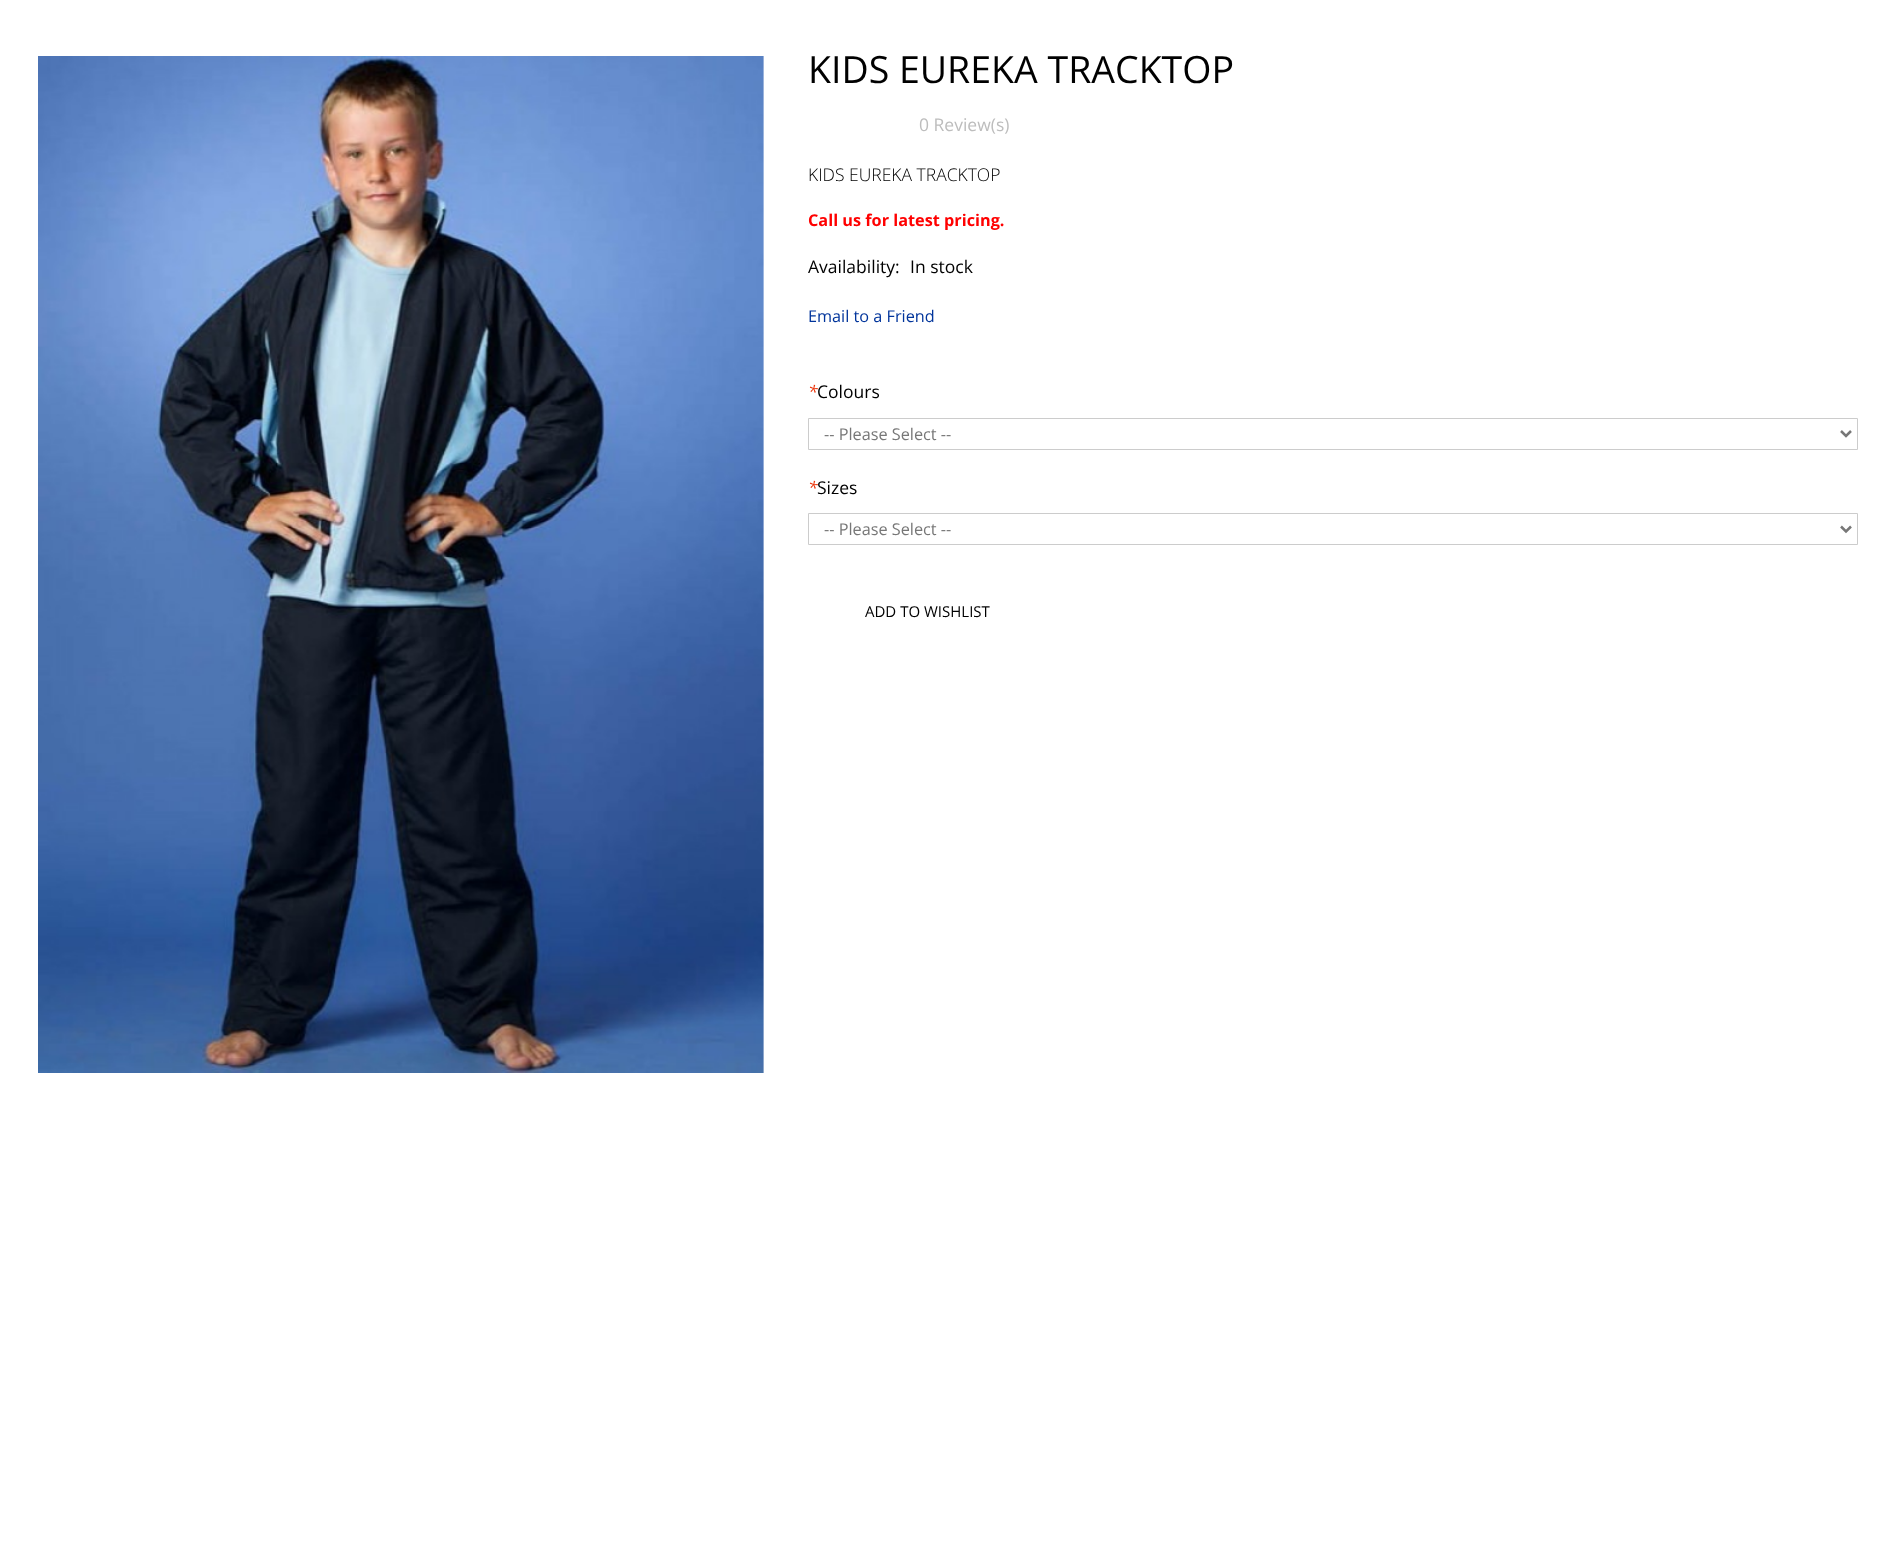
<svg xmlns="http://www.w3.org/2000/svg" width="1888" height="1557">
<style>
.a{font:37.5px Open Sans;fill:#000}
.b{font:17.5px Open Sans;fill:#bdbdbd}
.c{font:300 17.5px Open Sans;fill:#000}
.d{font:bold 16.25px Open Sans;fill:#f00}
.e{font:17.5px Open Sans;fill:#000}
.f{font:16.25px Open Sans;fill:#00349b}
.g{font:italic 17.5px Open Sans;fill:#eb340a}
.h{font:16.25px Open Sans;fill:#777}
.i{font:15px Open Sans;fill:#000}
</style>
<rect width="100%" height="100%" fill="#fff"/>
<image href="1.png" x="38" y="56" width="726" height="1017"/>
<path fill="none" stroke="#ccc" d="M808.5 418.5h1049v31H808.5z"/>
<path fill="none" stroke="#777" stroke-width="2.5" d="M1841 431l5 5l5-5"/>
<path fill="none" stroke="#ccc" d="M808.5 513.5h1049v31H808.5z"/>
<path fill="none" stroke="#777" stroke-width="2.5" d="M1841 526.5l5 5l5-5"/>
<text class="a" x="808" y="83">KIDS EUREKA TRACKTOP</text>
<text class="b" x="919" y="131">0 Review(s)</text>
<text class="c" x="808" y="181">KIDS EUREKA TRACKTOP</text>
<text class="d" x="808" y="226">Call us for latest pricing.</text>
<text class="e" x="808" y="273">Availability:</text>
<text class="e" x="910" y="273">In stock</text>
<text class="f" x="808" y="322">Email to a Friend</text>
<text class="g" x="808" y="398">*</text>
<text class="e" x="817" y="398">Colours</text>
<text class="h" x="824" y="440">-- Please Select --</text>
<text class="g" x="808" y="494">*</text>
<text class="e" x="817" y="494">Sizes</text>
<text class="h" x="824" y="535">-- Please Select --</text>
<text class="i" x="865" y="617">ADD TO WISHLIST</text>
</svg>
